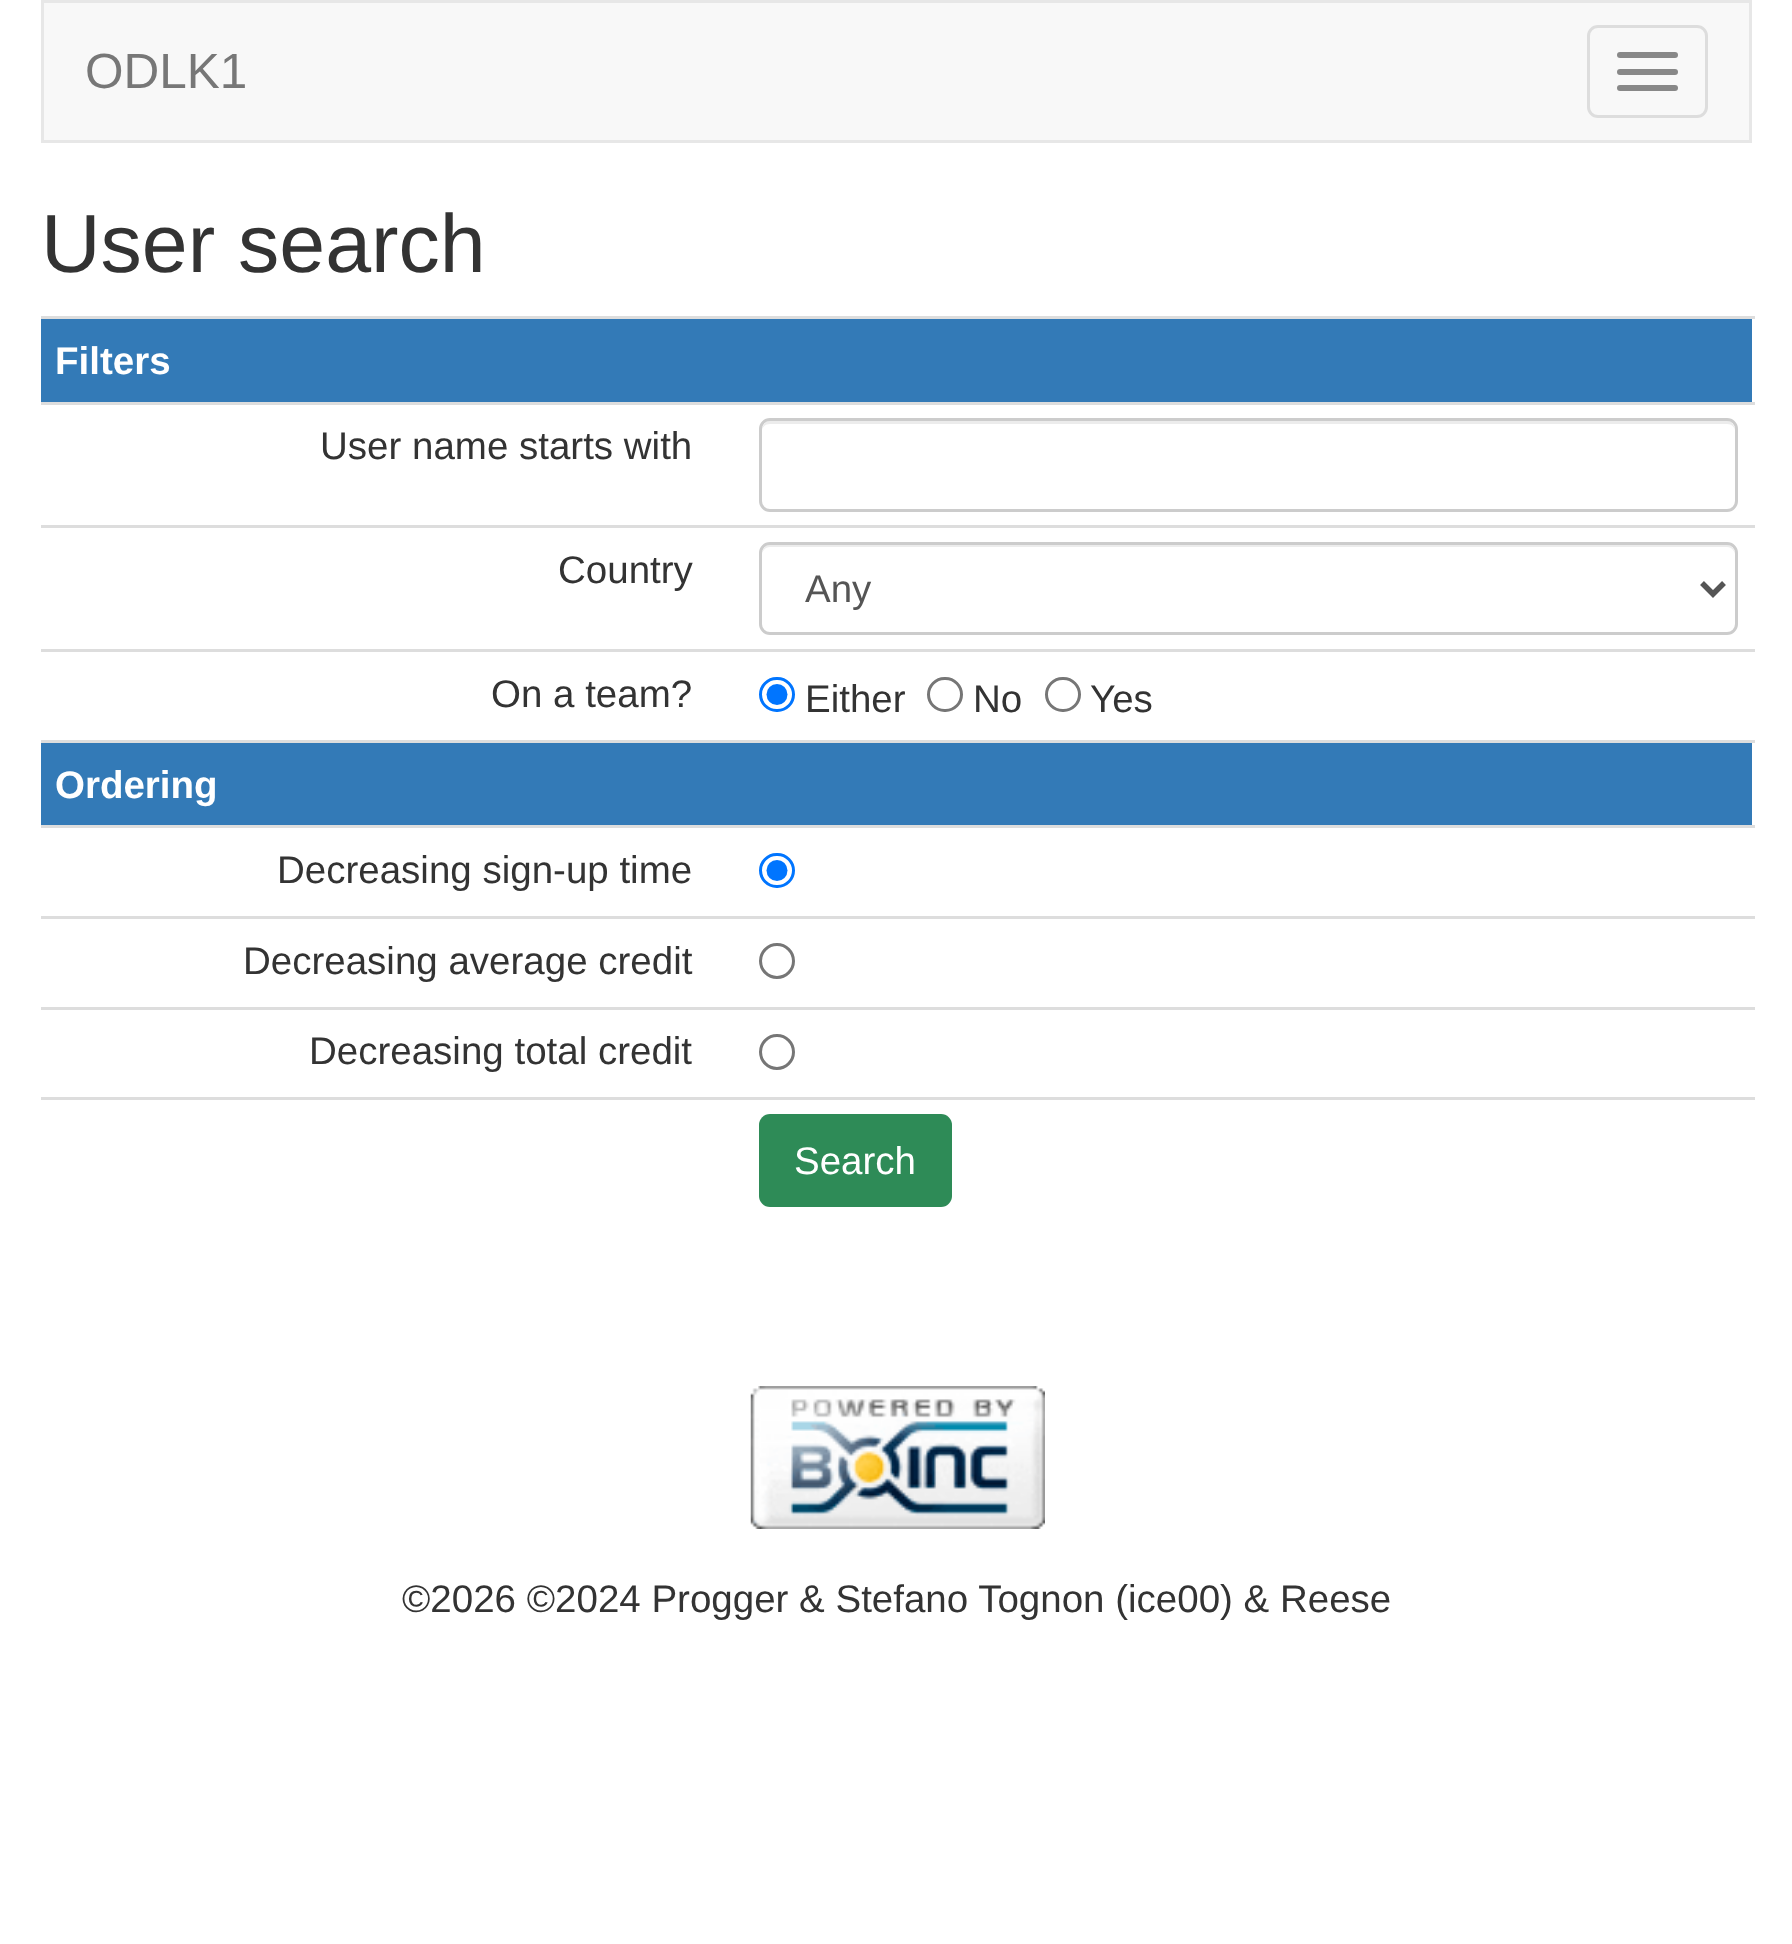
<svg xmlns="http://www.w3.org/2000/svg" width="1792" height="1944">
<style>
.a{font:49.5px Liberation Sans;fill:#777}
.b{font:82.5px Liberation Sans;fill:#333}
.c{font:bold 38.5px Liberation Sans;fill:#fff}
.d{font:38.5px Liberation Sans;fill:#333}
.e{font:38.5px Liberation Sans;fill:#555}
.f{font:38.5px Liberation Sans;fill:#fff}
</style>
<rect width="100%" height="100%" fill="#fff"/>
<path fill="#f8f8f8" stroke="#e7e7e7" stroke-width="3" d="M42.5 1.5h1708v140H42.5z"/>
<rect fill="none" stroke="#ddd" stroke-width="3" x="1588.5" y="26.5" width="118" height="90" rx="9.5"/>
<rect fill="#888" x="1617" y="52" width="61" height="6" rx="3"/>
<rect fill="#888" x="1617" y="69" width="61" height="6" rx="3"/>
<rect fill="#888" x="1617" y="85" width="61" height="6" rx="3"/>
<path fill="#337ab7" d="M41 319h1711v83H41z"/>
<path fill="#ddd" d="M41 316h1714v3H41z"/>
<path fill="#ddd" d="M41 402h1714v3H41z"/>
<path fill="#ececec" d="M770 424h957c5 0 8 3 8 8c0-5-2-11-8-11h-957c-6 0-8 6-8 11c0-5 3-8 8-8z"/>
<rect fill="none" stroke="#ccc" stroke-width="3" x="760.5" y="419.5" width="976" height="91" rx="9.5"/>
<path fill="#ddd" d="M41 525h1714v3H41z"/>
<path fill="#ececec" d="M770 547h957c5 0 8 4 8 9c0-5-2-11-8-11h-957c-6 0-8 6-8 11c0-5 3-9 8-9z"/>
<rect fill="none" stroke="#ccc" stroke-width="3" x="760.5" y="543.5" width="976" height="90" rx="9.5"/>
<path fill="none" stroke="#555" stroke-width="5.5" d="M1702 583l11 11l11-11"/>
<path fill="#ddd" d="M41 649h1714v3H41z"/>
<rect fill="none" stroke="#0075ff" stroke-width="3" x="760.5" y="678.5" width="33" height="32" rx="16"/>
<circle fill="#0075ff" cx="777" cy="694.5" r="10.5"/>
<rect fill="none" stroke="#767676" stroke-width="3" x="928.5" y="678.5" width="33" height="32" rx="16"/>
<rect fill="none" stroke="#767676" stroke-width="3" x="1046.5" y="678.5" width="33" height="32" rx="16"/>
<path fill="#337ab7" d="M41 743h1711v82H41z"/>
<path fill="#ddd" d="M41 740h1714v3H41z"/>
<path fill="#ddd" d="M41 825h1714v3H41z"/>
<rect fill="none" stroke="#0075ff" stroke-width="3" x="760.5" y="854.5" width="33" height="32" rx="16"/>
<circle fill="#0075ff" cx="777" cy="870.5" r="10.5"/>
<path fill="#ddd" d="M41 916h1714v3H41z"/>
<circle fill="none" stroke="#767676" stroke-width="3" cx="777" cy="961" r="16.5"/>
<path fill="#ddd" d="M41 1007h1714v3H41z"/>
<circle fill="none" stroke="#767676" stroke-width="3" cx="777" cy="1052" r="16.5"/>
<path fill="#ddd" d="M41 1097h1714v3H41z"/>
<rect fill="#2e8b57" x="759" y="1114" width="193" height="93" rx="11"/>
<image href="1.png" x="750" y="1386" width="295" height="143"/>
<text class="a" x="85" y="88">ODLK1</text>
<text class="b" x="41" y="272">User search</text>
<text class="c" x="55" y="374">Filters</text>
<text class="d" x="320" y="459">User name starts with</text>
<text class="d" x="558" y="583">Country</text>
<text class="e" x="805" y="602">Any</text>
<text class="d" x="491" y="707">On a team?</text>
<text class="d" x="805" y="712">Either</text>
<text class="d" x="973" y="712">No</text>
<text class="d" x="1090" y="712">Yes</text>
<text class="c" x="55" y="798">Ordering</text>
<text class="d" x="277" y="883">Decreasing sign-up time</text>
<text class="d" x="243" y="974">Decreasing average credit</text>
<text class="d" x="309" y="1064">Decreasing total credit</text>
<text class="f" x="794" y="1174">Search</text>
<text class="d" x="402" y="1612">©2026 ©2024 Progger &amp; Stefano Tognon (ice00) &amp; Reese</text>
</svg>
